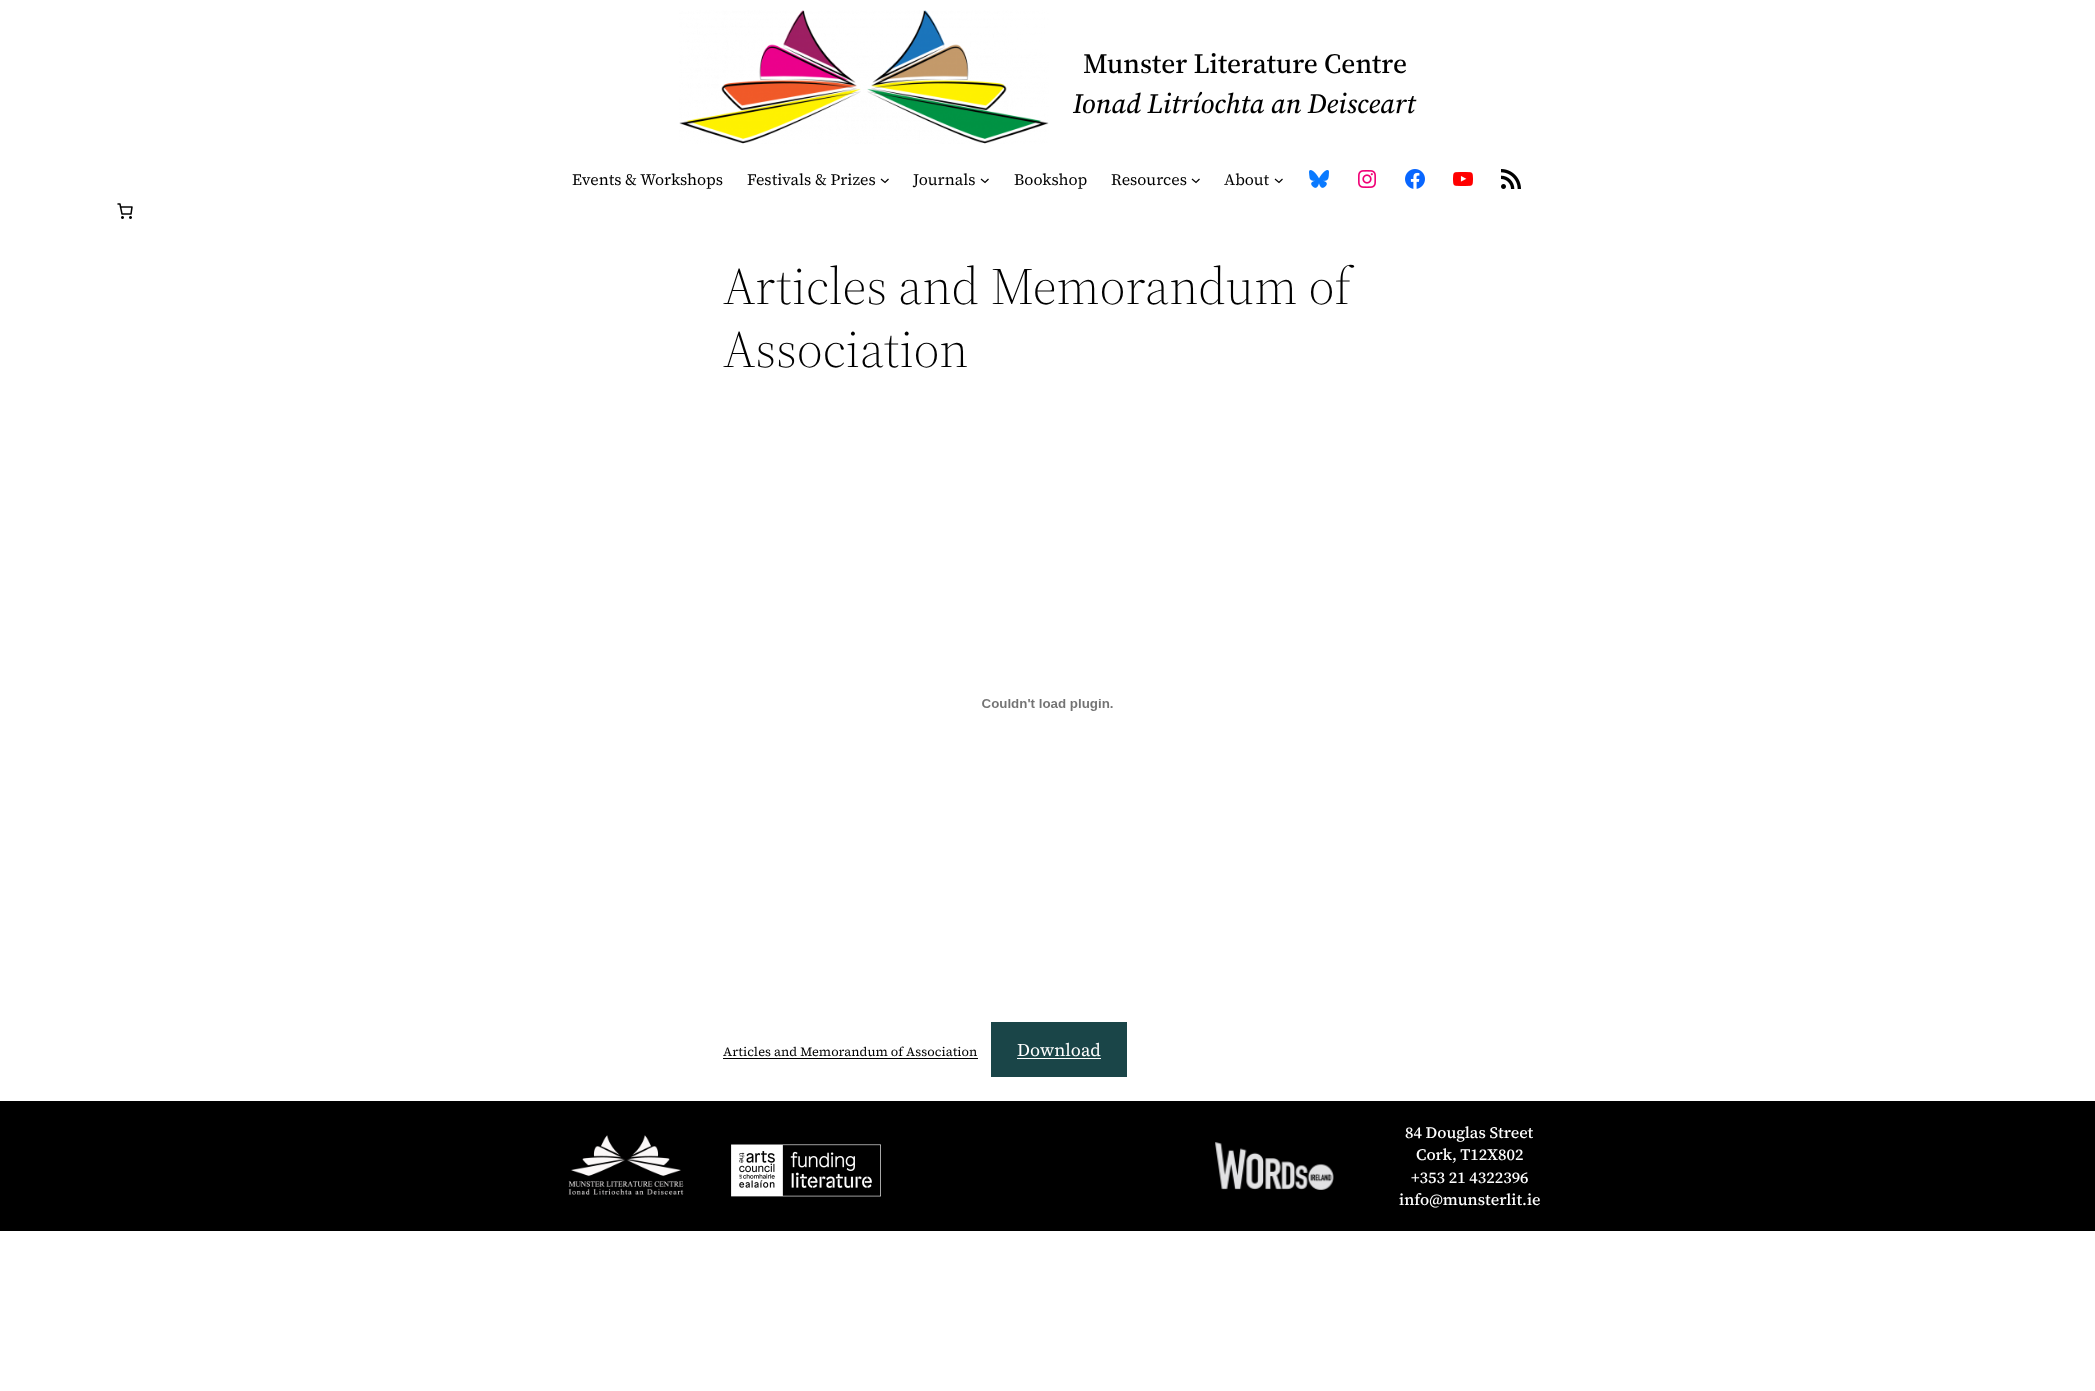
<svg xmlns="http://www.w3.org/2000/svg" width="2095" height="1391">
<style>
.a{font:500 28px 'Source Serif 4';fill:#000}
.b{font:italic 500 28px 'Source Serif 4';fill:#000}
.c{font:16px 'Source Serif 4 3';fill:#000}
.d{font:300 52px 'Source Serif 4';fill:#000}
.e{font:12.75px 'Source Serif 4';fill:#000}
.f{font:18px 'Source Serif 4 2';fill:#fff}
.g{font:500 16px 'Source Serif 4 2';fill:#fff}
</style>
<rect width="100%" height="100%" fill="#fff"/>
<image href="1.png" x="679" y="10" width="370" height="134"/>
<path fill="none" stroke="#000" stroke-width="1.2" d="M881 179l4 3.5l3.5-3.5"/>
<path fill="none" stroke="#000" stroke-width="1.2" d="M981 179l4 3.5l3.5-3.5"/>
<path fill="none" stroke="#000" stroke-width="1.2" d="M1192 179l4 3.5l3.5-3.5"/>
<path fill="none" stroke="#000" stroke-width="1.2" d="M1275 179l4 3.5l3.5-3.5"/>
<image href="2.png" x="1309" y="170" width="20" height="18"/>
<image href="3.png" x="1358" y="170" width="18" height="18"/>
<image href="4.png" x="1405" y="169" width="20" height="20"/>
<image href="5.png" x="1453" y="172" width="20" height="14"/>
<image href="6.png" x="1501" y="169" width="20" height="20"/>
<image href="7.png" x="117" y="203" width="16" height="16"/>
<image href="8.png" x="982" y="699" width="131" height="12"/>
<path fill="#000" d="M723 1058h255v1H723z"/>
<path fill="#1a4548" d="M991 1022h136v55H991z"/>
<path fill="#fff" d="M1017 1058h84v1H1017z"/>
<path fill="#000" d="M0 1101h2095v130H0z"/>
<image href="9.png" x="568" y="1135" width="116" height="60"/>
<image href="10.png" x="731" y="1144" width="150" height="53"/>
<image href="11.png" x="1215" y="1142" width="119" height="48"/>
<text class="a" x="1083" y="73">Munster Literature Centre</text>
<text class="b" x="1073" y="113">Ionad Litríochta an Deisceart</text>
<text class="c" x="572" y="185">Events &amp; Workshops</text>
<text class="c" x="747" y="185">Festivals &amp; Prizes</text>
<text class="c" x="913" y="185">Journals</text>
<text class="c" x="1014" y="185">Bookshop</text>
<text class="c" x="1111" y="185">Resources</text>
<text class="c" x="1224" y="185">About</text>
<text class="d" x="723" y="304">Articles and Memorandum of</text>
<text class="d" x="723" y="367">Association</text>
<text class="e" x="723" y="1056">Articles and Memorandum of Association</text>
<text class="f" x="1017" y="1056">Download</text>
<text class="g" x="1405" y="1138">84 Douglas Street</text>
<text class="g" x="1416" y="1160">Cork, T12X802</text>
<text class="g" x="1411" y="1183">+353 21 4322396</text>
<text class="g" x="1399" y="1205">info@munsterlit.ie</text>
</svg>
